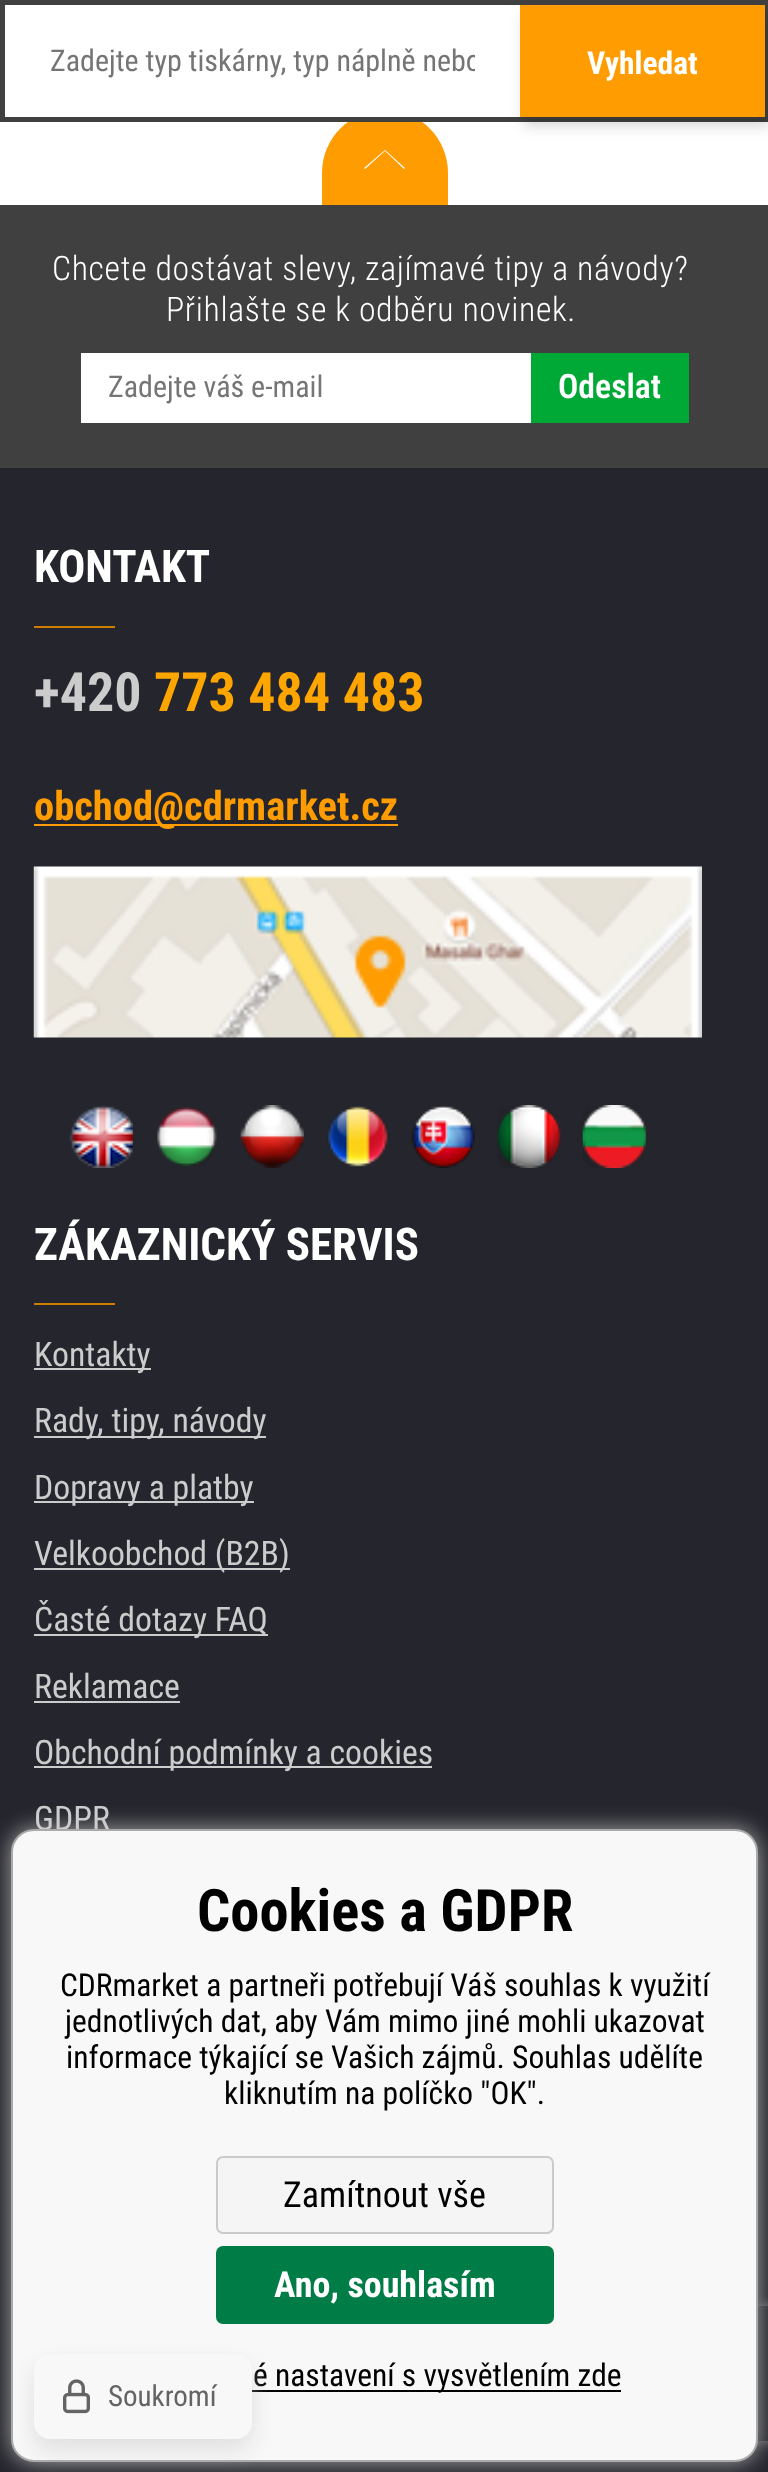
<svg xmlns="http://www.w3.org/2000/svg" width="768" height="2472">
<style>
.a{font:30px Roboto Condensed;fill:#757575}
.b{font:bold 31.5px Roboto Condensed;fill:#fff}
.c{font:300 33.75px Roboto Condensed;letter-spacing:0.65px;fill:#fff}
.d{font:600 33.75px Roboto Condensed;fill:#fff}
.e{font:bold 45px Roboto Condensed;fill:#fff}
.f{font:bold 54px Roboto Condensed;fill:#ccc}
.g{font:bold 54px Roboto Condensed;fill:#ffa500}
.h{font:bold 40.5px Roboto Condensed;fill:#ff9c01}
.i{font:33.75px Roboto Condensed;fill:#ccc}
.j{font:bold 58.5px Roboto Condensed;fill:#000}
.k{font:31.5px Roboto Condensed;fill:#000}
.l{font:36px Roboto Condensed;fill:#000}
.m{font:bold 36px Roboto Condensed;fill:#fff}
.n{font:29px Roboto Condensed;fill:#646464}
</style>
<defs>
<clipPath id="clip1"><path d="M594 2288h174v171h-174zm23 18h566c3 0 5 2 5 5v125c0 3-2 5-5 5h-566c-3 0-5-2-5-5v-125c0-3 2-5 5-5z" clip-rule="evenodd"/></clipPath>
<clipPath id="clip2"><path d="M50 45h425v34H50z"/></clipPath>
</defs>
<rect width="100%" height="100%" fill="#fff"/>
<path fill="#ff9c01" d="M385 110c35 0 63 28 63 63v32h-126v-32c0-35 28-63 63-63z"/>
<path fill="none" stroke="#404040" stroke-width="5" d="M2.5 2.5h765v117H2.5z"/>
<path fill="#fff" d="M356 110h58v7H356z"/>
<path fill="#00000029" filter="blur(7px)" d="M524 14h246v112H524z"/>
<path fill="#ff9c01" d="M520 5h245v112H520z"/>
<path fill="#fff" d="M405 168l-20-18l-21 18l1 1l20-18l19 18z"/>
<path fill="#404040" d="M0 205h768v263H0z"/>
<path fill="#fff" d="M81 353h450v70H81z"/>
<path fill="#00a935" d="M531 353h158v70H531z"/>
<path fill="#25262d" d="M0 468h768v2004H0z"/>
<path fill="#cd7d00" d="M34 626h81v2H34z"/>
<path fill="#ff9c01" d="M34 824h364v2H34z"/>
<image href="1.png" x="33" y="866" width="669" height="172"/>
<image href="2.png" x="69" y="1105" width="64" height="63"/>
<image href="3.png" x="157" y="1106" width="60" height="61"/>
<image href="4.png" x="240" y="1105" width="64" height="63"/>
<image href="5.png" x="327" y="1106" width="62" height="62"/>
<image href="6.png" x="411" y="1105" width="64" height="63"/>
<image href="7.png" x="497" y="1105" width="64" height="63"/>
<image href="8.png" x="582" y="1105" width="64" height="63"/>
<path fill="#cd7d00" d="M34 1303h81v2H34z"/>
<path fill="#ccc" d="M34 1368h117v2H34z"/>
<path fill="#ccc" d="M34 1436h232v2H34z"/>
<path fill="#ccc" d="M34 1501h220v2H34z"/>
<path fill="#ccc" d="M34 1568h256v2H34z"/>
<path fill="#ccc" d="M34 1634h234v2H34z"/>
<path fill="#ccc" d="M34 1701h146v2H34z"/>
<path fill="#ccc" d="M34 1766h398v2H34z"/>
<rect fill="#c8c8c8cc" filter="blur(11px)" x="11" y="1829" width="747" height="633" rx="23"/>
<g clip-path="url(#clip1)">
<rect fill="#808080" filter="blur(5.5px)" x="612" y="2306" width="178" height="135" rx="5"/>
</g>
<g clip-path="url(#clip2)">
<text class="a" x="50" y="71">Zadejte typ tiskárny, typ náplně nebo</text>
</g>
<text class="b" x="587" y="74">Vyhledat</text>
<text class="c" x="52" y="280">Chcete dostávat slevy, zajímavé tipy a návody?</text>
<text class="c" x="166" y="321">Přihlašte se k odběru novinek.</text>
<text class="a" x="108" y="397">Zadejte váš e-mail</text>
<text class="d" x="558" y="398">Odeslat</text>
<text class="e" x="34" y="582">KONTAKT</text>
<text class="f" x="34" y="711">+420</text>
<text class="g" x="154" y="711">773 484 483</text>
<text class="h" x="34" y="820">obchod@cdrmarket.cz</text>
<text class="e" x="34" y="1260">ZÁKAZNICKÝ SERVIS</text>
<text class="i" x="34" y="1366">Kontakty</text>
<text class="i" x="34" y="1432">Rady, tipy, návody</text>
<text class="i" x="34" y="1499">Dopravy a platby</text>
<text class="i" x="34" y="1565">Velkoobchod (B2B)</text>
<text class="i" x="34" y="1631">Časté dotazy FAQ</text>
<text class="i" x="34" y="1698">Reklamace</text>
<text class="i" x="34" y="1764">Obchodní podmínky a cookies</text>
<text class="i" x="34" y="1830">GDPR</text>
<rect fill="#f8f8f8" stroke="#aaa" stroke-width="2" x="12" y="1830" width="745" height="631" rx="22"/>
<text class="j" x="197" y="1931">Cookies a GDPR</text>
<text class="k" x="60" y="1996">CDRmarket a partneři potřebují Váš souhlas k využití</text>
<text class="k" x="65" y="2032">jednotlivých dat, aby Vám mimo jiné mohli ukazovat</text>
<text class="k" x="66" y="2068">informace týkající se Vašich zájmů. Souhlas udělíte</text>
<text class="k" x="224" y="2104">kliknutím na políčko "OK".</text>
<rect fill="#f5f5f5" stroke="#cacaca" stroke-width="2" x="217" y="2157" width="336" height="76" rx="6"/>
<text class="l" x="283" y="2207">Zamítnout vše</text>
<rect fill="#007c47" stroke="#007c47" stroke-width="2" x="217" y="2247" width="336" height="76" rx="6"/>
<text class="m" x="274" y="2297">Ano, souhlasím</text>
<path fill="#000" d="M252 2390h369v2H252z"/>
<text class="k" x="253" y="2386">é nastavení s vysvětlením zde</text>
<rect fill="#c8c8c880" filter="blur(11px)" x="34" y="2365" width="218" height="85" rx="16"/>
<rect fill="#f8f8f8" x="34" y="2354" width="218" height="85" rx="16"/>
<image href="9.png" x="63" y="2379" width="27" height="35"/>
<text class="n" x="108" y="2406">Soukromí</text>
</svg>
